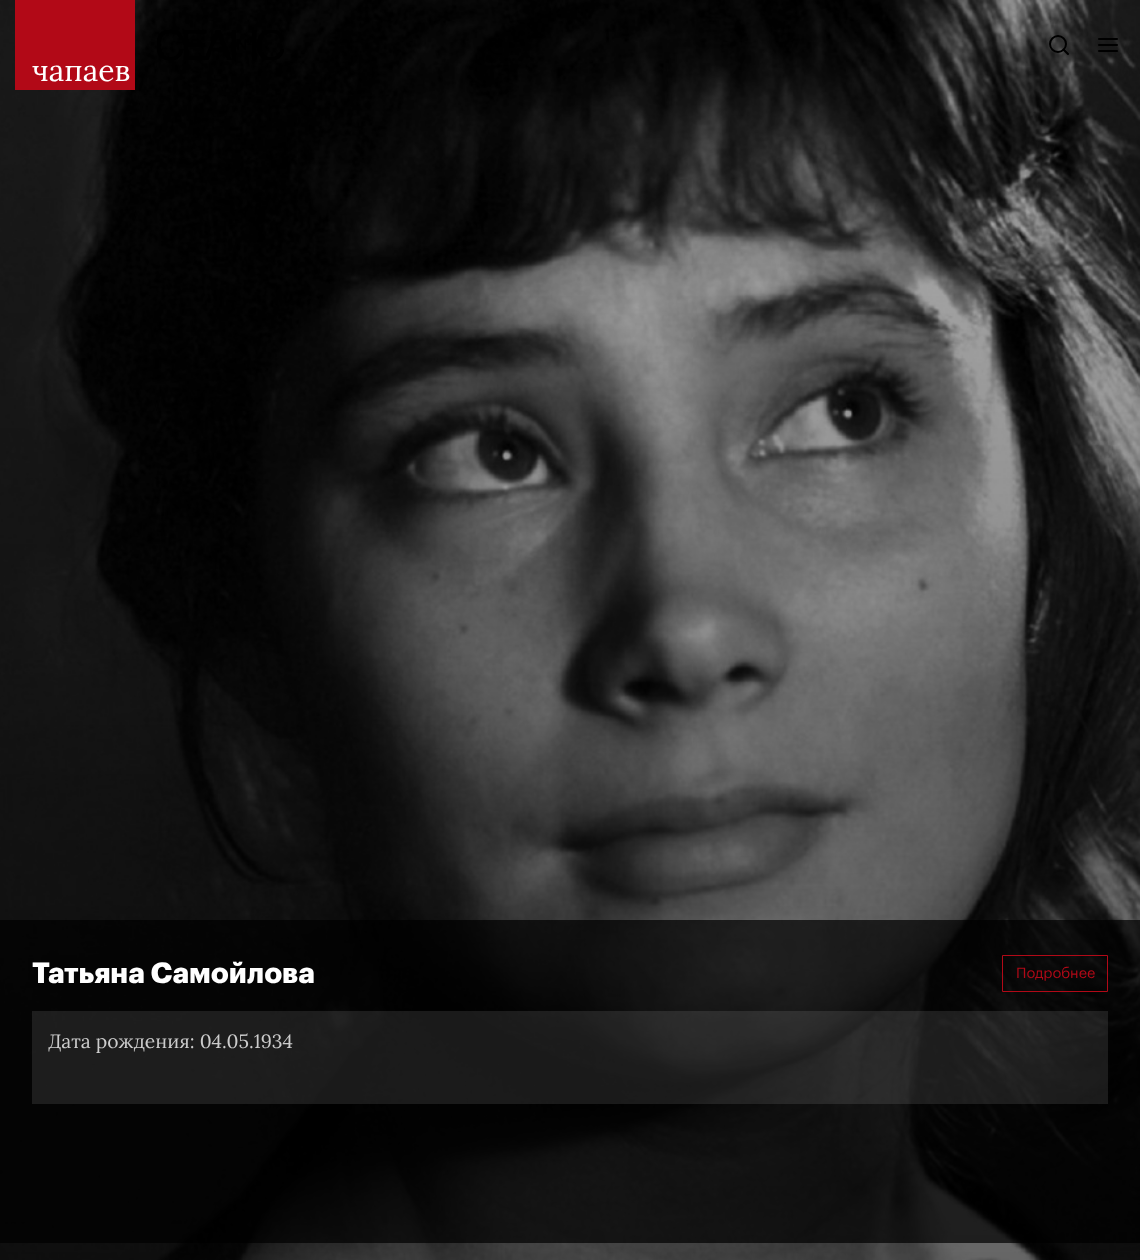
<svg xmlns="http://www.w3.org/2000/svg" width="1140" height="1260">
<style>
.a{font:30px Lora;fill:#fff}
.b{font:bold 28.75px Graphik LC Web;fill:#fff}
.c{font:14.5px Graphik LC Web;fill:#b20917}
.d{font:19.25px Lora;fill:#ccc}
</style>
<rect width="100%" height="100%" fill="#fff"/>
<image href="3.png" x="0" y="0" width="1140" height="1260"/>
<circle fill="none" stroke="#000" stroke-width="2" cx="1058" cy="44" r="8"/>
<path fill="none" stroke="#000" stroke-width="2" stroke-linecap="round" stroke-linejoin="round" d="M1068 54l-4.5-4.5"/>
<image href="1.png" x="1098" y="38" width="20" height="14"/>
<image href="2.png" x="157" y="30" width="127" height="30"/>
<path fill="#b20917" d="M15 0h120v90H15z"/>
<path fill="#000000b3" d="M0 920h1140v323H0z"/>
<path fill="none" stroke="#b20917" d="M1002.5 955.5h105v36H1002.5z"/>
<path fill="#ffffff1a" d="M32 1011h1076v93H32z"/>
<text class="a" x="32" y="81">чапаев</text>
<text class="b" x="32" y="983">Татьяна Самойлова</text>
<text class="c" x="1016" y="978">Подробнее</text>
<text class="d" x="48" y="1048">Дата рождения: 04.05.1934</text>
</svg>
